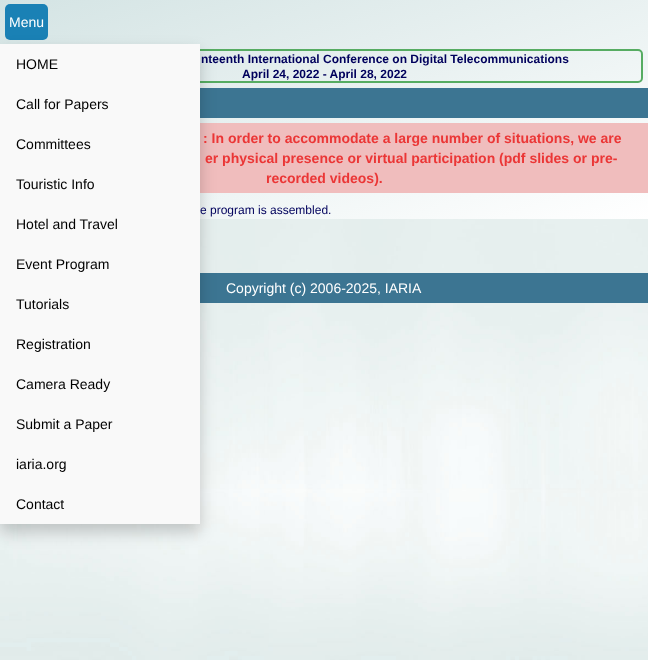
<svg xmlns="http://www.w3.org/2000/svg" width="648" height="660">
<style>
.a{font:14px Liberation Sans;fill:#fff}
.b{font:14px Liberation Sans;fill:#000}
.c{font:bold 12px Liberation Sans;fill:#00005c}
.d{font:bold 14px Liberation Sans;fill:#eb3636}
.e{font:12px Liberation Sans;fill:#00005c}
</style>
<defs>
<linearGradient id="g1" gradientUnits="userSpaceOnUse" x1="258" y1="-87" x2="390" y2="306"><stop offset="0" stop-color="#d4e4e4"/><stop offset="1" stop-color="#fff"/></linearGradient>
</defs>
<rect width="100%" height="100%" fill="#fff"/>
<image href="1.png" x="0" y="219" width="648" height="441"/>
<path fill="url(#g1)" d="M0 0h648v219H0z"/>
<rect fill="#1a81b5" x="5" y="4" width="43" height="36" rx="5"/>
<rect fill="none" stroke="#56ac62" stroke-width="2" x="6" y="50" width="636" height="32" rx="4"/>
<path fill="#3c7592" d="M200 88h448v30H200z"/>
<path fill="#f0bdbd" d="M200 123h448v70H200z"/>
<path fill="#3c7592" d="M200 273h448v30H200z"/>
<path fill="#00000033" filter="blur(8px)" d="M0 52h200v480H0z"/>
<path fill="#f9f9f9" d="M0 44h200v480H0z"/>
<text class="a" x="9" y="27">Menu</text>
<text class="b" x="16" y="69">HOME</text>
<text class="b" x="16" y="109">Call for Papers</text>
<text class="b" x="16" y="149">Committees</text>
<text class="b" x="16" y="189">Touristic Info</text>
<text class="b" x="16" y="229">Hotel and Travel</text>
<text class="b" x="16" y="269">Event Program</text>
<text class="b" x="16" y="309">Tutorials</text>
<text class="b" x="16" y="349">Registration</text>
<text class="b" x="16" y="389">Camera Ready</text>
<text class="b" x="16" y="429">Submit a Paper</text>
<text class="b" x="16" y="469">iaria.org</text>
<text class="b" x="16" y="509">Contact</text>
<text class="c" x="201" y="63">nteenth International Conference on Digital Telecommunications</text>
<text class="c" x="242" y="78">April 24, 2022 - April 28, 2022</text>
<text class="d" x="203" y="143">: In order to accommodate a large number of situations, we are</text>
<text class="d" x="205" y="163">er physical presence or virtual participation (pdf slides or pre-</text>
<text class="d" x="266" y="183">recorded videos).</text>
<text class="e" x="200" y="214">e program is assembled.</text>
<text class="a" x="226" y="293">Copyright (c) 2006-2025, IARIA</text>
</svg>
